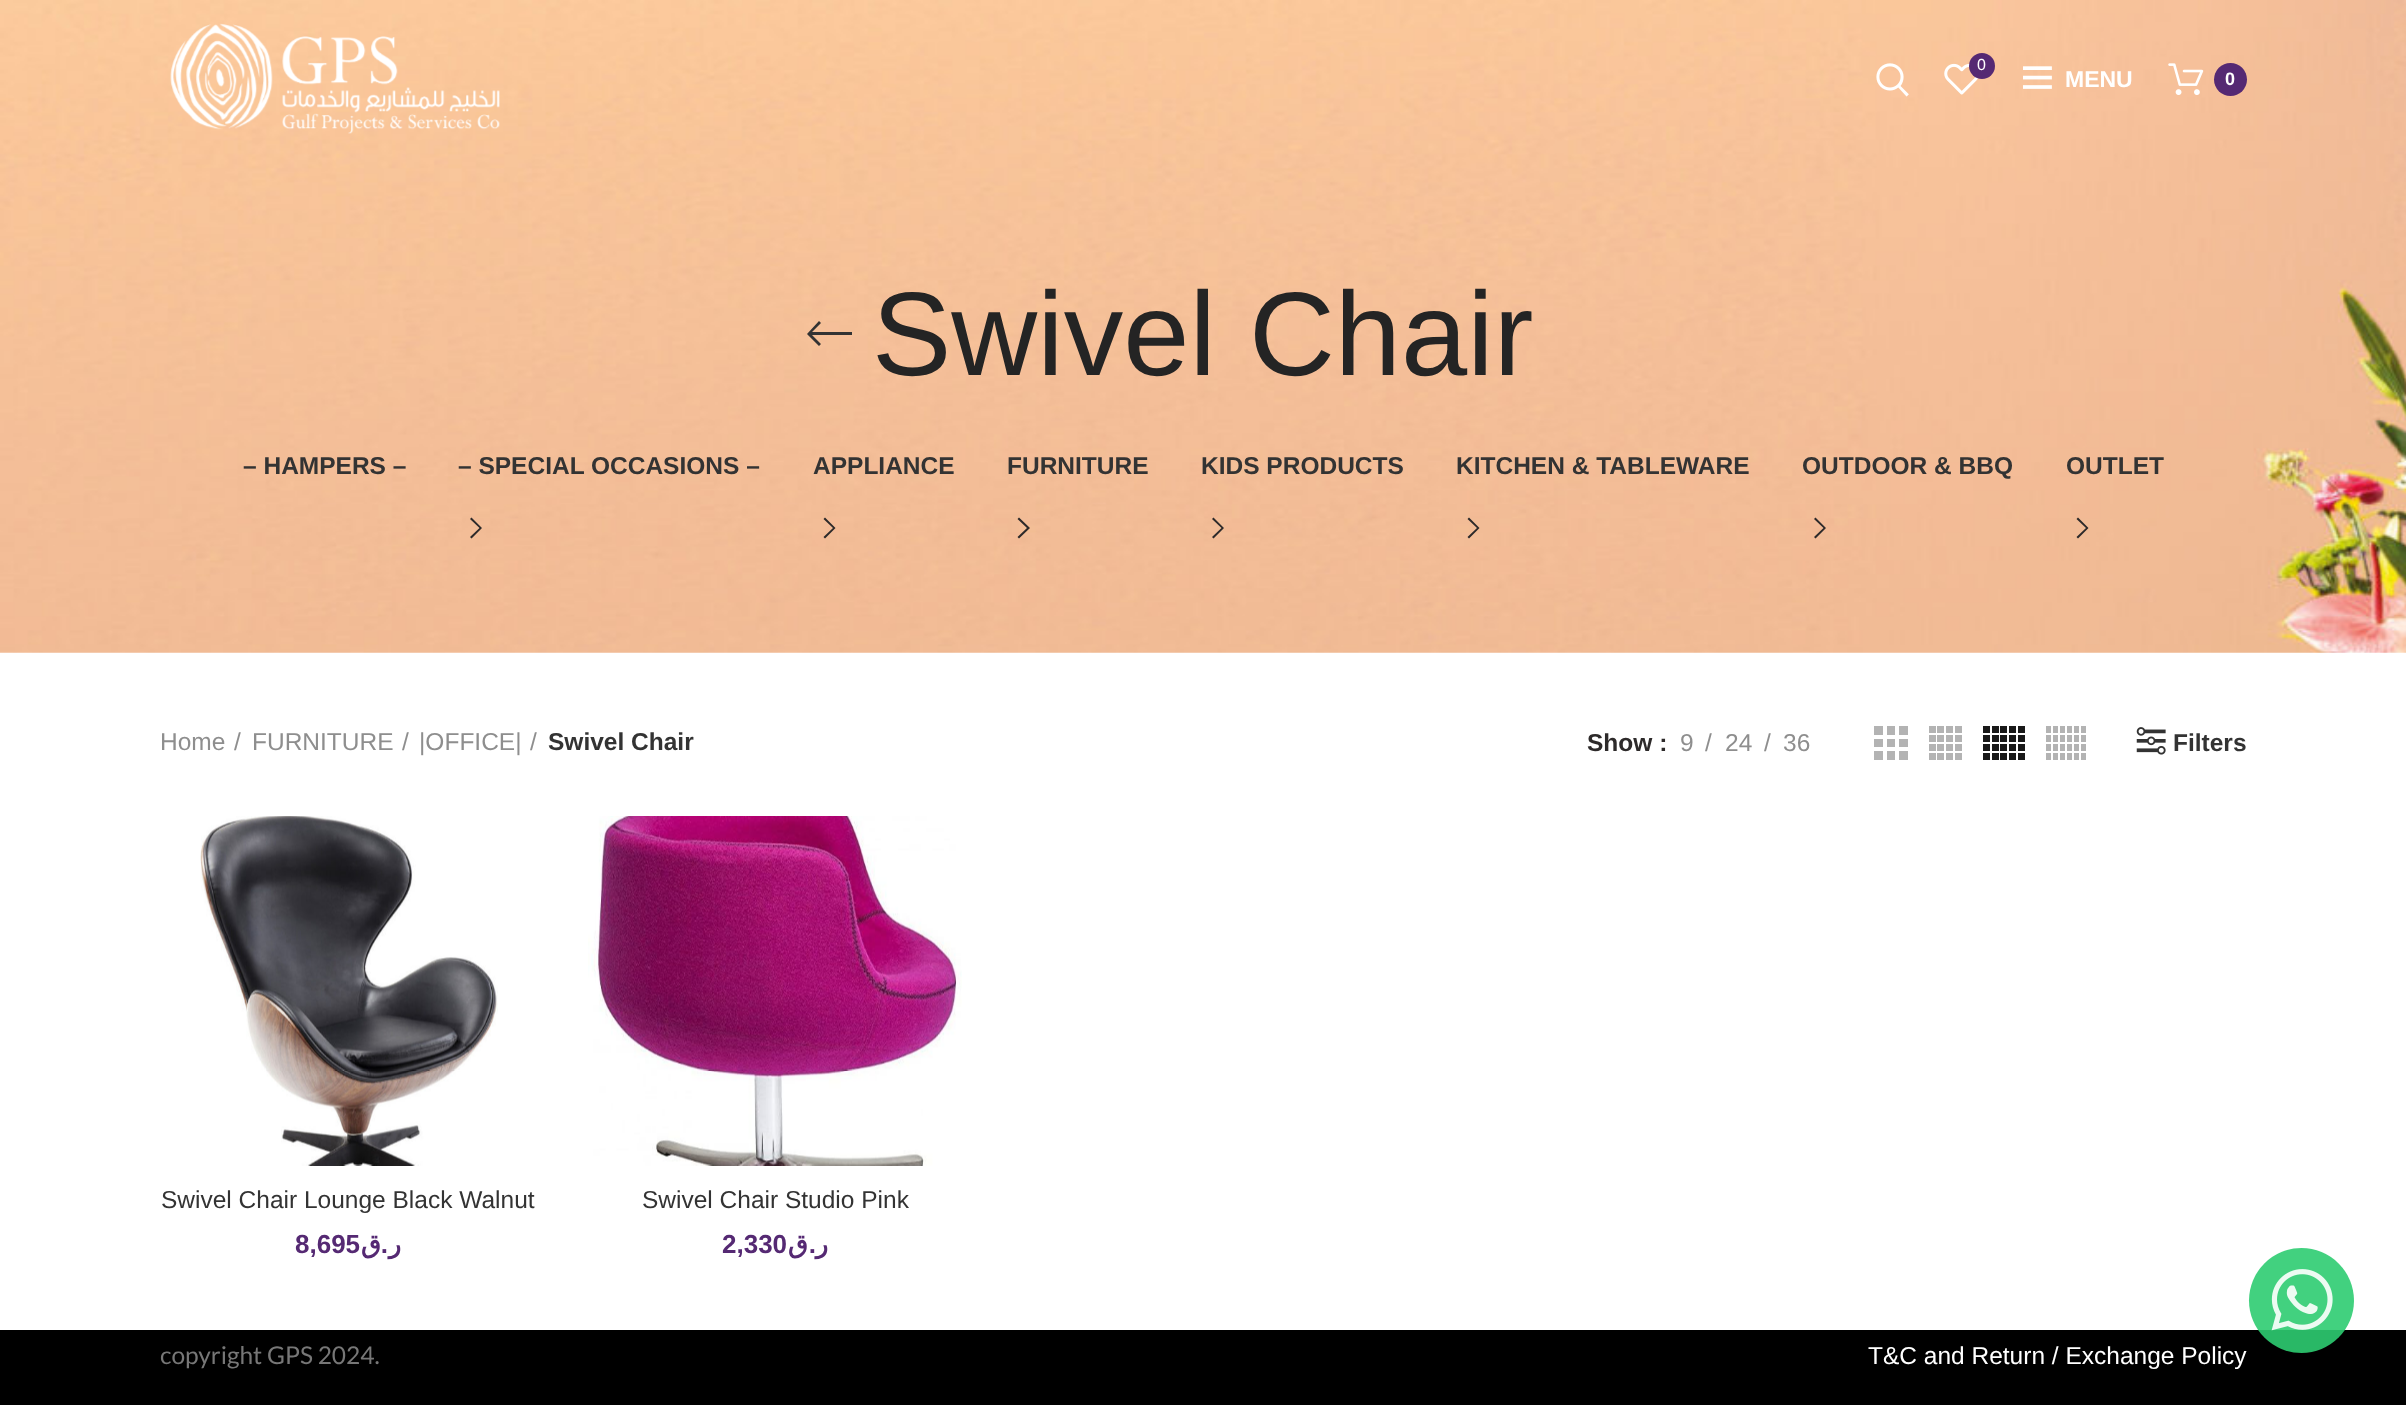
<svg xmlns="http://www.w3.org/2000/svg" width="2406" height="1405">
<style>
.a{font:16px Liberation Sans;fill:#fff}
.b{font:bold 23px Liberation Sans;fill:#fff}
.c{font:bold 18px Liberation Sans;fill:#fff}
.d{font:119px Liberation Sans;fill:#242424}
.e{font:bold 24.5px Liberation Sans;fill:#333}
.f{font:24.5px Liberation Sans;fill:#8e8e8e}
.g{font:bold 24.5px Liberation Sans;fill:#2d2a2a}
.h{font:24.5px Liberation Sans;fill:#333}
.i{font:bold 26px Liberation Sans;fill:#552973}
.j{font:bold 26px DejaVu Sans;direction:rtl;fill:#552973}
.k{font:bold 26px Liberation Sans;direction:rtl;fill:#552973}
.l{font:24.5px Lato;fill:#777}
.m{font:24.5px Liberation Sans;fill:#fff}
</style>
<rect width="100%" height="100%" fill="#000"/>
<path fill="#fff" d="M0 652h2406v678H0z"/>
<image href="6.png" x="0" y="0" width="2406" height="653"/>
<image href="1.png" x="170" y="23" width="330" height="111"/>
<image href="2.png" x="1876" y="63" width="33" height="34"/>
<image href="3.png" x="1944" y="63" width="34" height="32"/>
<circle fill="#552973" cx="1982" cy="66" r="13"/>
<image href="4.png" x="2023" y="66" width="29" height="23"/>
<image href="5.png" x="2168" y="63" width="36" height="32"/>
<circle fill="#552973" cx="2230.5" cy="79.5" r="16.5"/>
<path fill="#333" d="M852 332v3h-40l9 9l-2 2l-12-12l12-13l2 2l-9 9z"/>
<path fill="#2d2a2a" d="M471.5 517.5l10.5 10.5l-10.5 10.5l-1.5-1.5l9.5-9l-9.5-9z"/>
<path fill="#2d2a2a" d="M825 517.5l10.5 10.5l-10.5 10.5l-1.5-1.5l9.5-9l-9.5-9z"/>
<path fill="#2d2a2a" d="M1019 517.5l11 10.5l-11 10.5l-1.5-1.5l9.5-9l-9.5-9z"/>
<path fill="#2d2a2a" d="M1213.5 517.5l10.5 10.5l-10.5 10.5l-1.5-1.5l9.5-9l-9.5-9z"/>
<path fill="#2d2a2a" d="M1469 517.5l10.5 10.5l-10.5 10.5l-1.5-1.5l9.5-9l-9.5-9z"/>
<path fill="#2d2a2a" d="M1815.5 517.5l10.5 10.5l-10.5 10.5l-1.5-1.5l9.5-9l-9.5-9z"/>
<path fill="#2d2a2a" d="M2078 517.5l10.5 10.5l-10.5 10.5l-1.5-1.5l9.5-9l-9.5-9z"/>
<image href="7.png" x="1874" y="726" width="34" height="34"/>
<image href="8.png" x="1929" y="726" width="33" height="34"/>
<image href="9.png" x="1983" y="726" width="42" height="34"/>
<image href="10.png" x="2046" y="726" width="40" height="34"/>
<image href="11.png" x="2136" y="727" width="30" height="28"/>
<image href="12.png" x="200" y="816" width="298" height="350"/>
<image href="13.png" x="588" y="816" width="374" height="350"/>
<circle fill="#2ecc71e6" cx="2301.5" cy="1300.5" r="52.5"/>
<image href="14.png" x="2271" y="1269" width="62" height="62"/>
<text class="a" x="1977" y="70">0</text>
<text class="b" x="2065" y="87">MENU</text>
<text class="c" x="2225" y="85">0</text>
<text class="d" x="872" y="375">Swivel Chair</text>
<text class="e" x="243" y="474">– HAMPERS –</text>
<text class="e" x="458" y="474">– SPECIAL OCCASIONS –</text>
<text class="e" x="813" y="474">APPLIANCE</text>
<text class="e" x="1007" y="474">FURNITURE</text>
<text class="e" x="1201" y="474">KIDS PRODUCTS</text>
<text class="e" x="1456" y="474">KITCHEN &amp; TABLEWARE</text>
<text class="e" x="1802" y="474">OUTDOOR &amp; BBQ</text>
<text class="e" x="2066" y="474">OUTLET</text>
<text class="f" x="160" y="750">Home</text>
<text class="f" x="234" y="750">/</text>
<text class="f" x="252" y="750">FURNITURE</text>
<text class="f" x="402" y="750">/</text>
<text class="f" x="419" y="750">|OFFICE|</text>
<text class="f" x="530" y="750">/</text>
<text class="e" x="548" y="750">Swivel Chair</text>
<text class="g" x="1587" y="751">Show :</text>
<text class="f" x="1680" y="751">9</text>
<text class="f" x="1705" y="751">/</text>
<text class="f" x="1725" y="751">24</text>
<text class="f" x="1764" y="751">/</text>
<text class="f" x="1783" y="751">36</text>
<text class="e" x="2173" y="751">Filters</text>
<text class="h" x="161" y="1208">Swivel Chair Lounge Black Walnut</text>
<text class="i" x="295" y="1253">8,695</text>
<text class="j" x="381" y="1253">ق</text>
<text class="k" x="388" y="1253">.</text>
<text class="j" x="401" y="1253">ر</text>
<text class="h" x="642" y="1208">Swivel Chair Studio Pink</text>
<text class="i" x="722" y="1253">2,330</text>
<text class="j" x="808" y="1253">ق</text>
<text class="k" x="816" y="1253">.</text>
<text class="j" x="828" y="1253">ر</text>
<text class="l" x="160" y="1364">copyright GPS 2024.</text>
<text class="m" x="1868" y="1364">T&amp;C and Return / Exchange Policy</text>
</svg>
